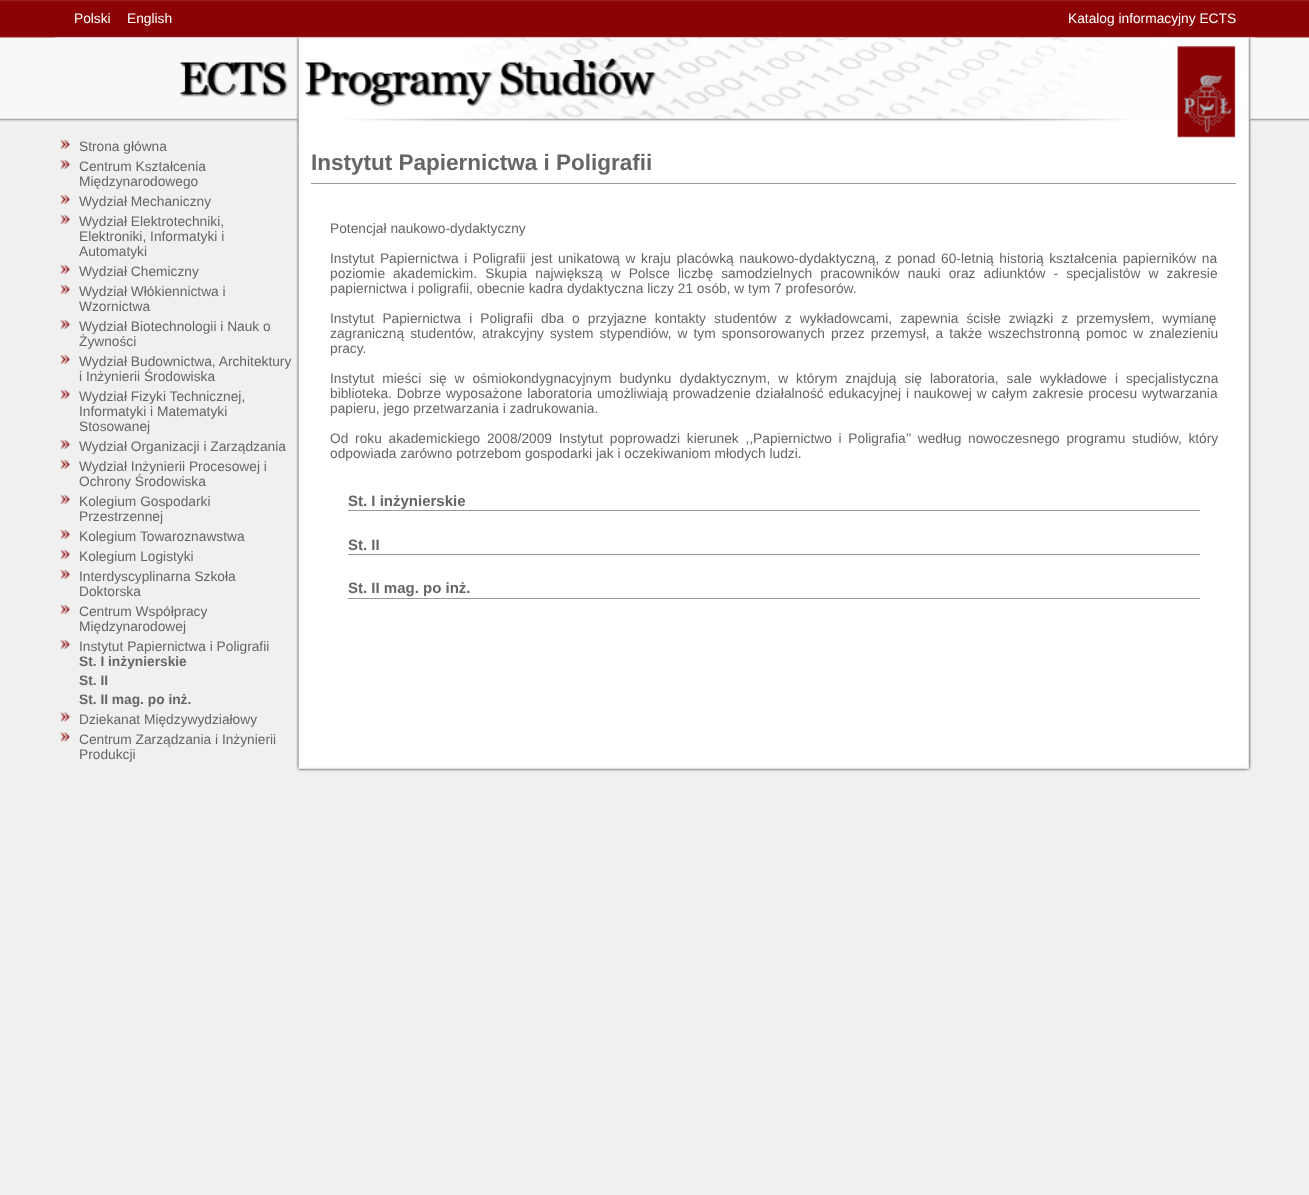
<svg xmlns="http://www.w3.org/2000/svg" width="1309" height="1195">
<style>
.a{font:13.75px Liberation Sans;fill:#fff}
.b{font:13.75px Liberation Sans;fill:#666}
.c{font:bold 13.75px Liberation Sans;fill:#666}
.d{font:bold 22.5px Liberation Sans;fill:#666}
.e{font:bold 15px Liberation Sans;fill:#666}
</style>
<rect width="100%" height="100%" fill="#f0f0f0"/>
<image href="1.png" x="0" y="0" width="1309" height="122"/>
<image href="2.png" x="55" y="37" width="1200" height="101"/>
<image href="3.png" x="296" y="137" width="956" height="628"/>
<image href="4.png" x="60" y="139" width="11" height="10"/>
<image href="4.png" x="60" y="159" width="11" height="10"/>
<image href="4.png" x="60" y="194" width="11" height="10"/>
<image href="4.png" x="60" y="214" width="11" height="10"/>
<image href="4.png" x="60" y="264" width="11" height="10"/>
<image href="4.png" x="60" y="284" width="11" height="10"/>
<image href="4.png" x="60" y="319" width="11" height="10"/>
<image href="4.png" x="60" y="354" width="11" height="10"/>
<image href="4.png" x="60" y="389" width="11" height="10"/>
<image href="4.png" x="60" y="439" width="11" height="10"/>
<image href="4.png" x="60" y="459" width="11" height="10"/>
<image href="4.png" x="60" y="494" width="11" height="10"/>
<image href="4.png" x="60" y="529" width="11" height="10"/>
<image href="4.png" x="60" y="549" width="11" height="10"/>
<image href="4.png" x="60" y="569" width="11" height="10"/>
<image href="4.png" x="60" y="604" width="11" height="10"/>
<image href="4.png" x="60" y="639" width="11" height="10"/>
<image href="5.png" x="60" y="712" width="11" height="10"/>
<image href="5.png" x="60" y="732" width="11" height="10"/>
<path fill="#999" d="M311 183h925v1H311z"/>
<path fill="#999" d="M348 510h852v1H348z"/>
<path fill="#999" d="M348 554h852v1H348z"/>
<path fill="#999" d="M348 598h852v1H348z"/>
<image href="6.png" x="296" y="765" width="956" height="7"/>
<text class="a" x="74" y="23">Polski</text>
<text class="a" x="127" y="23">English</text>
<text class="a" x="1068" y="23">Katalog informacyjny ECTS</text>
<text class="b" x="79" y="151">Strona główna</text>
<text class="b" x="79" y="171">Centrum Kształcenia</text>
<text class="b" x="79" y="186">Międzynarodowego</text>
<text class="b" x="79" y="206">Wydział Mechaniczny</text>
<text class="b" x="79" y="226">Wydział Elektrotechniki,</text>
<text class="b" x="79" y="241">Elektroniki, Informatyki i</text>
<text class="b" x="79" y="256">Automatyki</text>
<text class="b" x="79" y="276">Wydział Chemiczny</text>
<text class="b" x="79" y="296">Wydział Włókiennictwa i</text>
<text class="b" x="79" y="311">Wzornictwa</text>
<text class="b" x="79" y="331">Wydział Biotechnologii i Nauk o</text>
<text class="b" x="79" y="346">Żywności</text>
<text class="b" x="79" y="366">Wydział Budownictwa, Architektury</text>
<text class="b" x="79" y="381">i Inżynierii Środowiska</text>
<text class="b" x="79" y="401">Wydział Fizyki Technicznej,</text>
<text class="b" x="79" y="416">Informatyki i Matematyki</text>
<text class="b" x="79" y="431">Stosowanej</text>
<text class="b" x="79" y="451">Wydział Organizacji i Zarządzania</text>
<text class="b" x="79" y="471">Wydział Inżynierii Procesowej i</text>
<text class="b" x="79" y="486">Ochrony Środowiska</text>
<text class="b" x="79" y="506">Kolegium Gospodarki</text>
<text class="b" x="79" y="521">Przestrzennej</text>
<text class="b" x="79" y="541">Kolegium Towaroznawstwa</text>
<text class="b" x="79" y="561">Kolegium Logistyki</text>
<text class="b" x="79" y="581">Interdyscyplinarna Szkoła</text>
<text class="b" x="79" y="596">Doktorska</text>
<text class="b" x="79" y="616">Centrum Współpracy</text>
<text class="b" x="79" y="631">Międzynarodowej</text>
<text class="b" x="79" y="651">Instytut Papiernictwa i Poligrafii</text>
<text class="c" x="79" y="666">St. I inżynierskie</text>
<text class="c" x="79" y="685">St. II</text>
<text class="c" x="79" y="704">St. II mag. po inż.</text>
<text class="b" x="79" y="724">Dziekanat Międzywydziałowy</text>
<text class="b" x="79" y="744">Centrum Zarządzania i Inżynierii</text>
<text class="b" x="79" y="759">Produkcji</text>
<text class="d" x="311" y="170">Instytut Papiernictwa i Poligrafii</text>
<text class="b" x="330" y="233">Potencjał naukowo-dydaktyczny</text>
<text class="b" x="330" y="263" word-spacing="1.75">Instytut Papiernictwa i Poligrafii jest unikatową w kraju placówką naukowo-dydaktyczną, z ponad 60-letnią historią kształcenia papierników na</text>
<text class="b" x="330" y="278" word-spacing="4.25">poziomie akademickim. Skupia największą w Polsce liczbę samodzielnych pracowników nauki oraz adiunktów - specjalistów w zakresie</text>
<text class="b" x="330" y="293">papiernictwa i poligrafii, obecnie kadra dydaktyczna liczy 21 osób, w tym 7 profesorów.</text>
<text class="b" x="330" y="323" word-spacing="4.25">Instytut Papiernictwa i Poligrafii dba o przyjazne kontakty studentów z wykładowcami, zapewnia ścisłe związki z przemysłem, wymianę</text>
<text class="b" x="330" y="338" word-spacing="2.25">zagraniczną studentów, atrakcyjny system stypendiów, w tym sponsorowanych przez przemysł, a także wszechstronną pomoc w znalezieniu</text>
<text class="b" x="330" y="353">pracy.</text>
<text class="b" x="330" y="383" word-spacing="4.1">Instytut mieści się w ośmiokondygnacyjnym budynku dydaktycznym, w którym znajdują się laboratoria, sale wykładowe i specjalistyczna</text>
<text class="b" x="330" y="398" word-spacing="1">biblioteka. Dobrze wyposażone laboratoria umożliwiają prowadzenie działalność edukacyjnej i naukowej w całym zakresie procesu wytwarzania</text>
<text class="b" x="330" y="413">papieru, jego przetwarzania i zadrukowania.</text>
<text class="b" x="330" y="443" word-spacing="2.9">Od roku akademickiego 2008/2009 Instytut poprowadzi kierunek ,,Papiernictwo i Poligrafia’’ według nowoczesnego programu studiów, który</text>
<text class="b" x="330" y="458">odpowiada zarówno potrzebom gospodarki jak i oczekiwaniom młodych ludzi.</text>
<text class="e" x="348" y="506">St. I inżynierskie</text>
<text class="e" x="348" y="550">St. II</text>
<text class="e" x="348" y="593">St. II mag. po inż.</text>
</svg>
